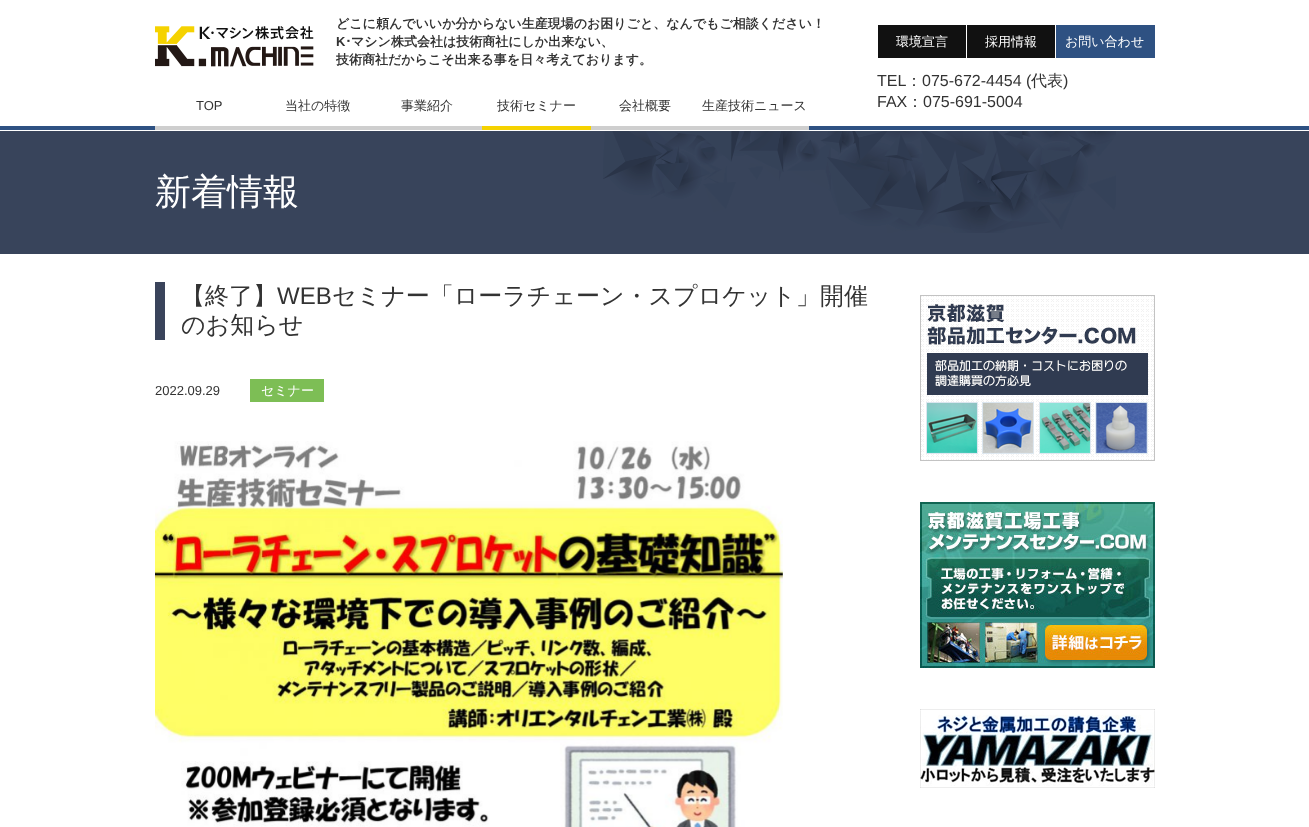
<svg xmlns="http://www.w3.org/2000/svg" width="1309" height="827">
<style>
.a{font:bold 13px WenQuanYi Zen Hei;fill:#333}
.b{font:bold 13px Liberation Sans;fill:#333}
.c{font:bold 13px IPAPGothic;fill:#333}
.d{font:500 13px WenQuanYi Zen Hei;fill:#fff}
.e{font:13px Liberation Sans;fill:#333}
.f{font:500 13px WenQuanYi Zen Hei;fill:#333}
.g{font:16px Liberation Sans;fill:#333}
.h{font:500 16px WenQuanYi Zen Hei;fill:#333}
.i{font:500 36px WenQuanYi Zen Hei;fill:#fff}
.j{font:500 24px WenQuanYi Zen Hei;fill:#333}
.k{font:24px Liberation Sans;fill:#333}
</style>
<rect width="100%" height="100%" fill="#fff"/>
<path fill="#2e5182" d="M0 126h1309v4H0z"/>
<image href="1.png" x="155" y="26" width="159" height="41"/>
<path fill="#111" d="M878 25h88v33H878z"/>
<path fill="#111" d="M967 25h88v33H967z"/>
<path fill="#2e5182" d="M1056 25h99v33H1056z"/>
<path fill="#cecece" d="M155 126h327v4H155z"/>
<path fill="#f5d200" d="M482 126h109v4H482z"/>
<path fill="#cecece" d="M591 126h218v4H591z"/>
<path fill="#38445b" d="M0 131h1309v123H0z"/>
<image href="2.png" x="603" y="131" width="513" height="102"/>
<path fill="#3a445b" d="M155 282h10v58H155z"/>
<path fill="#7dbe55" d="M250 379h74v23H250z"/>
<image href="3.png" x="155" y="441" width="628" height="386"/>
<image href="4.png" x="920" y="295" width="235" height="166"/>
<image href="5.png" x="920" y="502" width="235" height="166"/>
<image href="6.png" x="920" y="709" width="235" height="79"/>
<text class="a" x="336" y="28">どこに頼んでいいか分からない生産現場のお困りごと、なんでもご相談ください！</text>
<text class="b" x="336" y="46">K</text>
<text class="c" x="345" y="46">･</text>
<text class="a" x="351" y="46">マシン株式会社は技術商社にしか出来ない、</text>
<text class="a" x="336" y="64">技術商社だからこそ出来る事を日々考えております。</text>
<text class="d" x="896" y="46">環境宣言</text>
<text class="d" x="985" y="46">採用情報</text>
<text class="d" x="1065" y="46">お問い合わせ</text>
<text class="e" x="196" y="110">TOP</text>
<text class="f" x="285" y="110">当社の特徴</text>
<text class="f" x="401" y="110">事業紹介</text>
<text class="f" x="497" y="110">技術セミナー</text>
<text class="f" x="619" y="110">会社概要</text>
<text class="f" x="702" y="110">生産技術ニュース</text>
<text class="g" x="877" y="86">TEL</text>
<text class="h" x="906" y="86">：</text>
<text class="g" x="922" y="86">075-672-4454 (</text>
<text class="h" x="1031" y="86">代表</text>
<text class="g" x="1063" y="86">)</text>
<text class="g" x="877" y="107">FAX</text>
<text class="h" x="907" y="107">：</text>
<text class="g" x="923" y="107">075-691-5004</text>
<text class="i" x="155" y="204">新着情報</text>
<text class="j" x="181" y="304">【終了】</text>
<text class="k" x="277" y="304">WEB</text>
<text class="j" x="332" y="304">セミナー「ローラチェーン・スプロケット」開催</text>
<text class="j" x="181" y="333">のお知らせ</text>
<text class="e" x="155" y="395">2022.09.29</text>
<text class="d" x="261" y="395">セミナー</text>
</svg>
